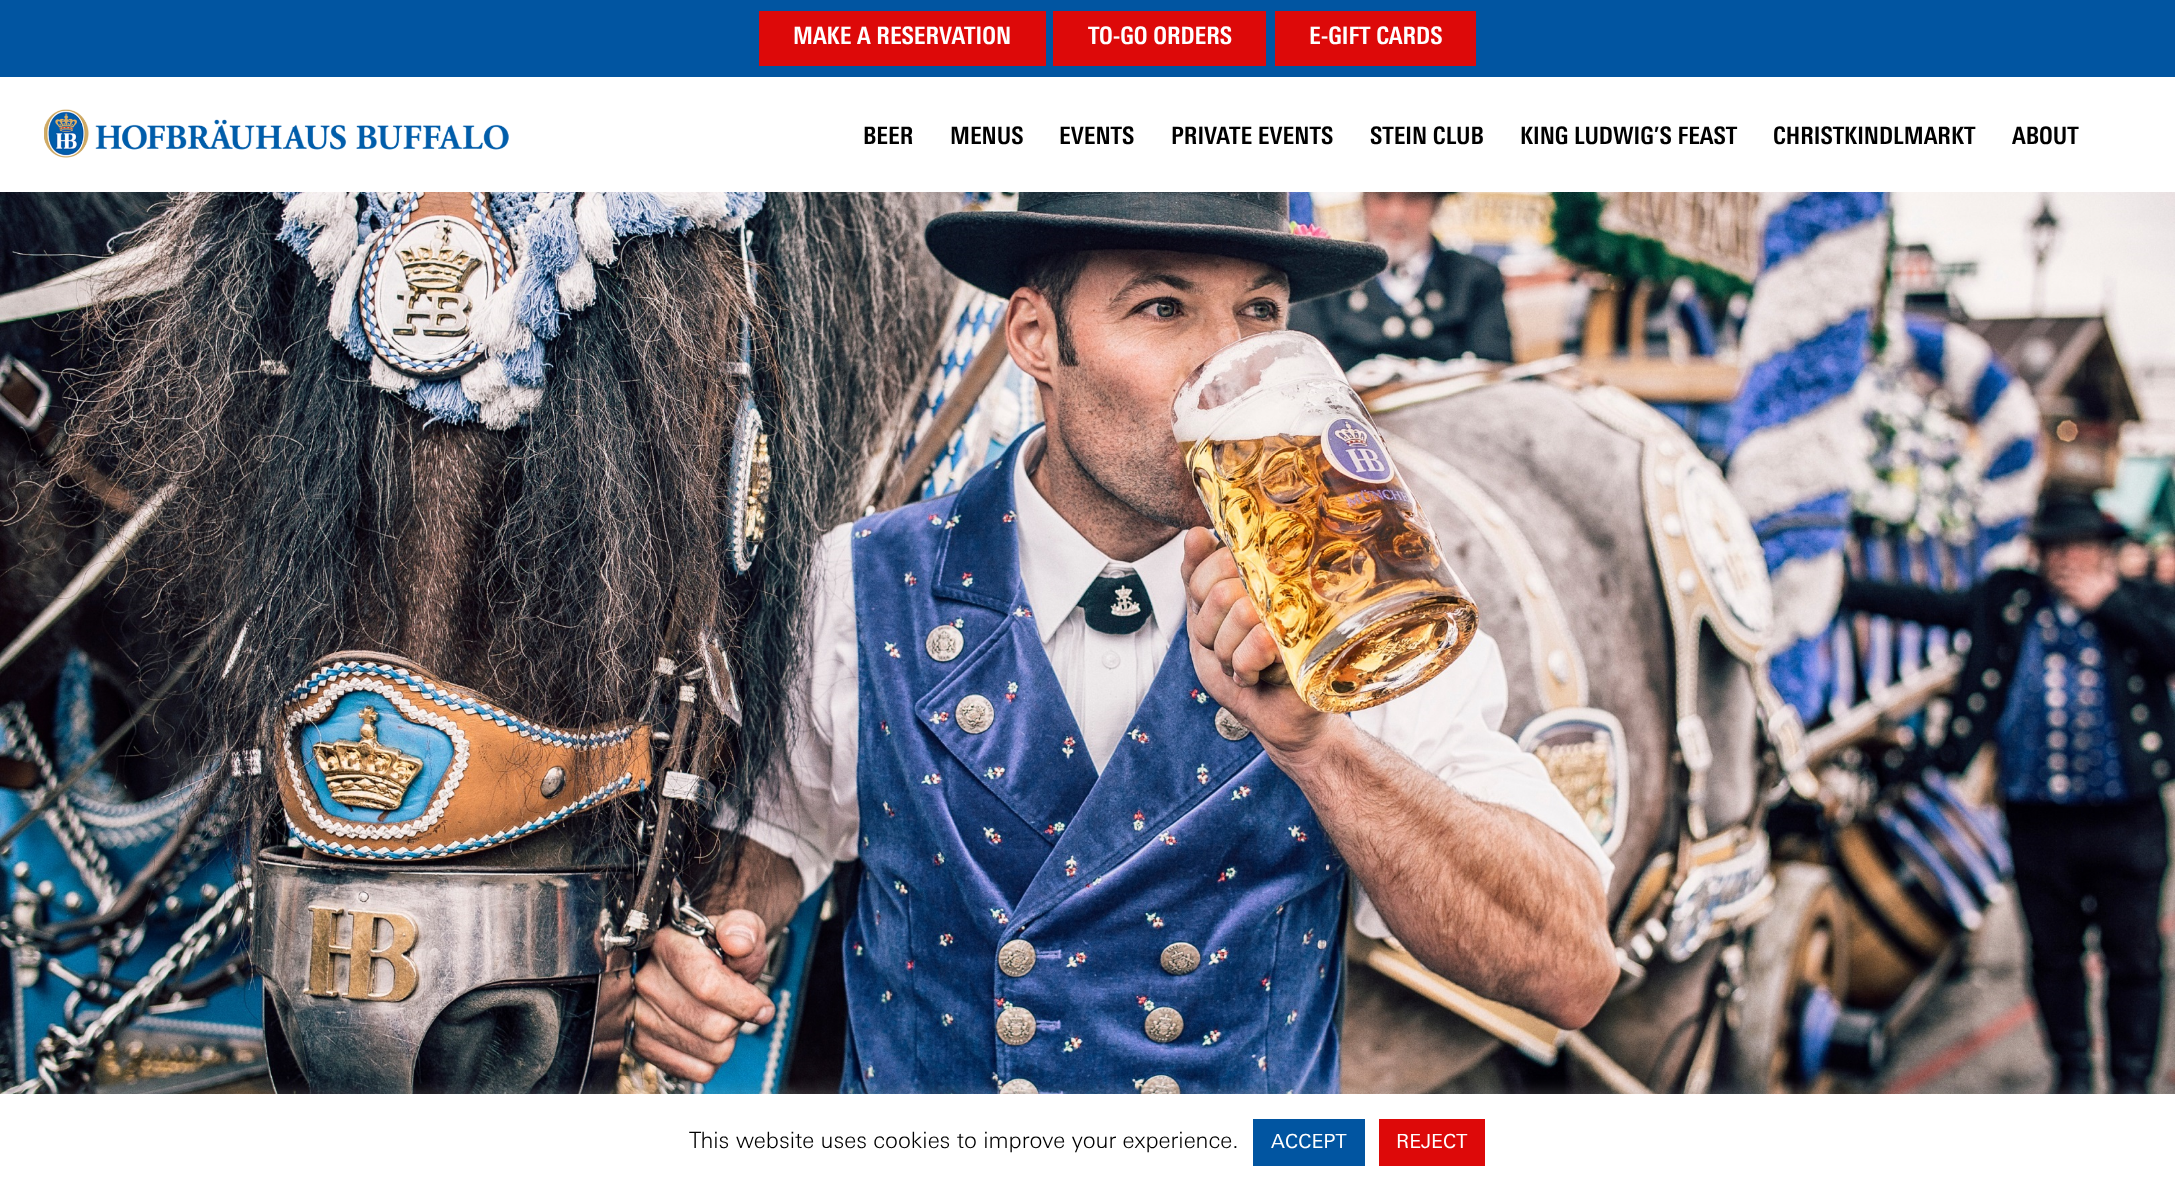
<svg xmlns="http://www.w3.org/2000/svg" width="2175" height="1183">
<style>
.a{font:bold 24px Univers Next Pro;fill:#fff}
.b{font:bold 24px Univers Next Pro;fill:#000}
.c{font:300 22.5px Univers Next Pro;fill:#000}
.d{font:19.5px Univers Next Pro;fill:#fff}
</style>
<rect width="100%" height="100%" fill="#fff"/>
<path fill="#0155a1" d="M0 0h2175v77H0z"/>
<path fill="#dd0909" d="M759 11h287v55H759z"/>
<path fill="#dd0909" d="M1053 11h213v55H1053z"/>
<path fill="#dd0909" d="M1275 11h201v55H1275z"/>
<image href="1.png" x="44" y="109" width="465" height="49"/>
<image href="2.png" x="0" y="192" width="2175" height="902"/>
<path fill="#acabab4d" filter="blur(7.5px)" d="M0 1092h2175v90H0z"/>
<path fill="#fff" d="M0 1094h2175v89H0z"/>
<path fill="#0155a1" d="M1253 1119h112v47H1253z"/>
<path fill="#dd0909" d="M1379 1119h106v47H1379z"/>
<text class="a" x="793" y="44">MAKE A RESERVATION</text>
<text class="a" x="1088" y="44">TO-GO ORDERS</text>
<text class="a" x="1309" y="44">E-GIFT CARDS</text>
<text class="b" x="863" y="144">BEER</text>
<text class="b" x="950" y="144">MENUS</text>
<text class="b" x="1059" y="144">EVENTS</text>
<text class="b" x="1171" y="144">PRIVATE EVENTS</text>
<text class="b" x="1370" y="144">STEIN CLUB</text>
<text class="b" x="1520" y="144">KING LUDWIG’S FEAST</text>
<text class="b" x="1773" y="144">CHRISTKINDLMARKT</text>
<text class="b" x="2012" y="144">ABOUT</text>
<text class="c" x="689" y="1148">This website uses cookies to improve your experience.</text>
<text class="d" x="1271" y="1148">ACCEPT</text>
<text class="d" x="1396" y="1148">REJECT</text>
</svg>
